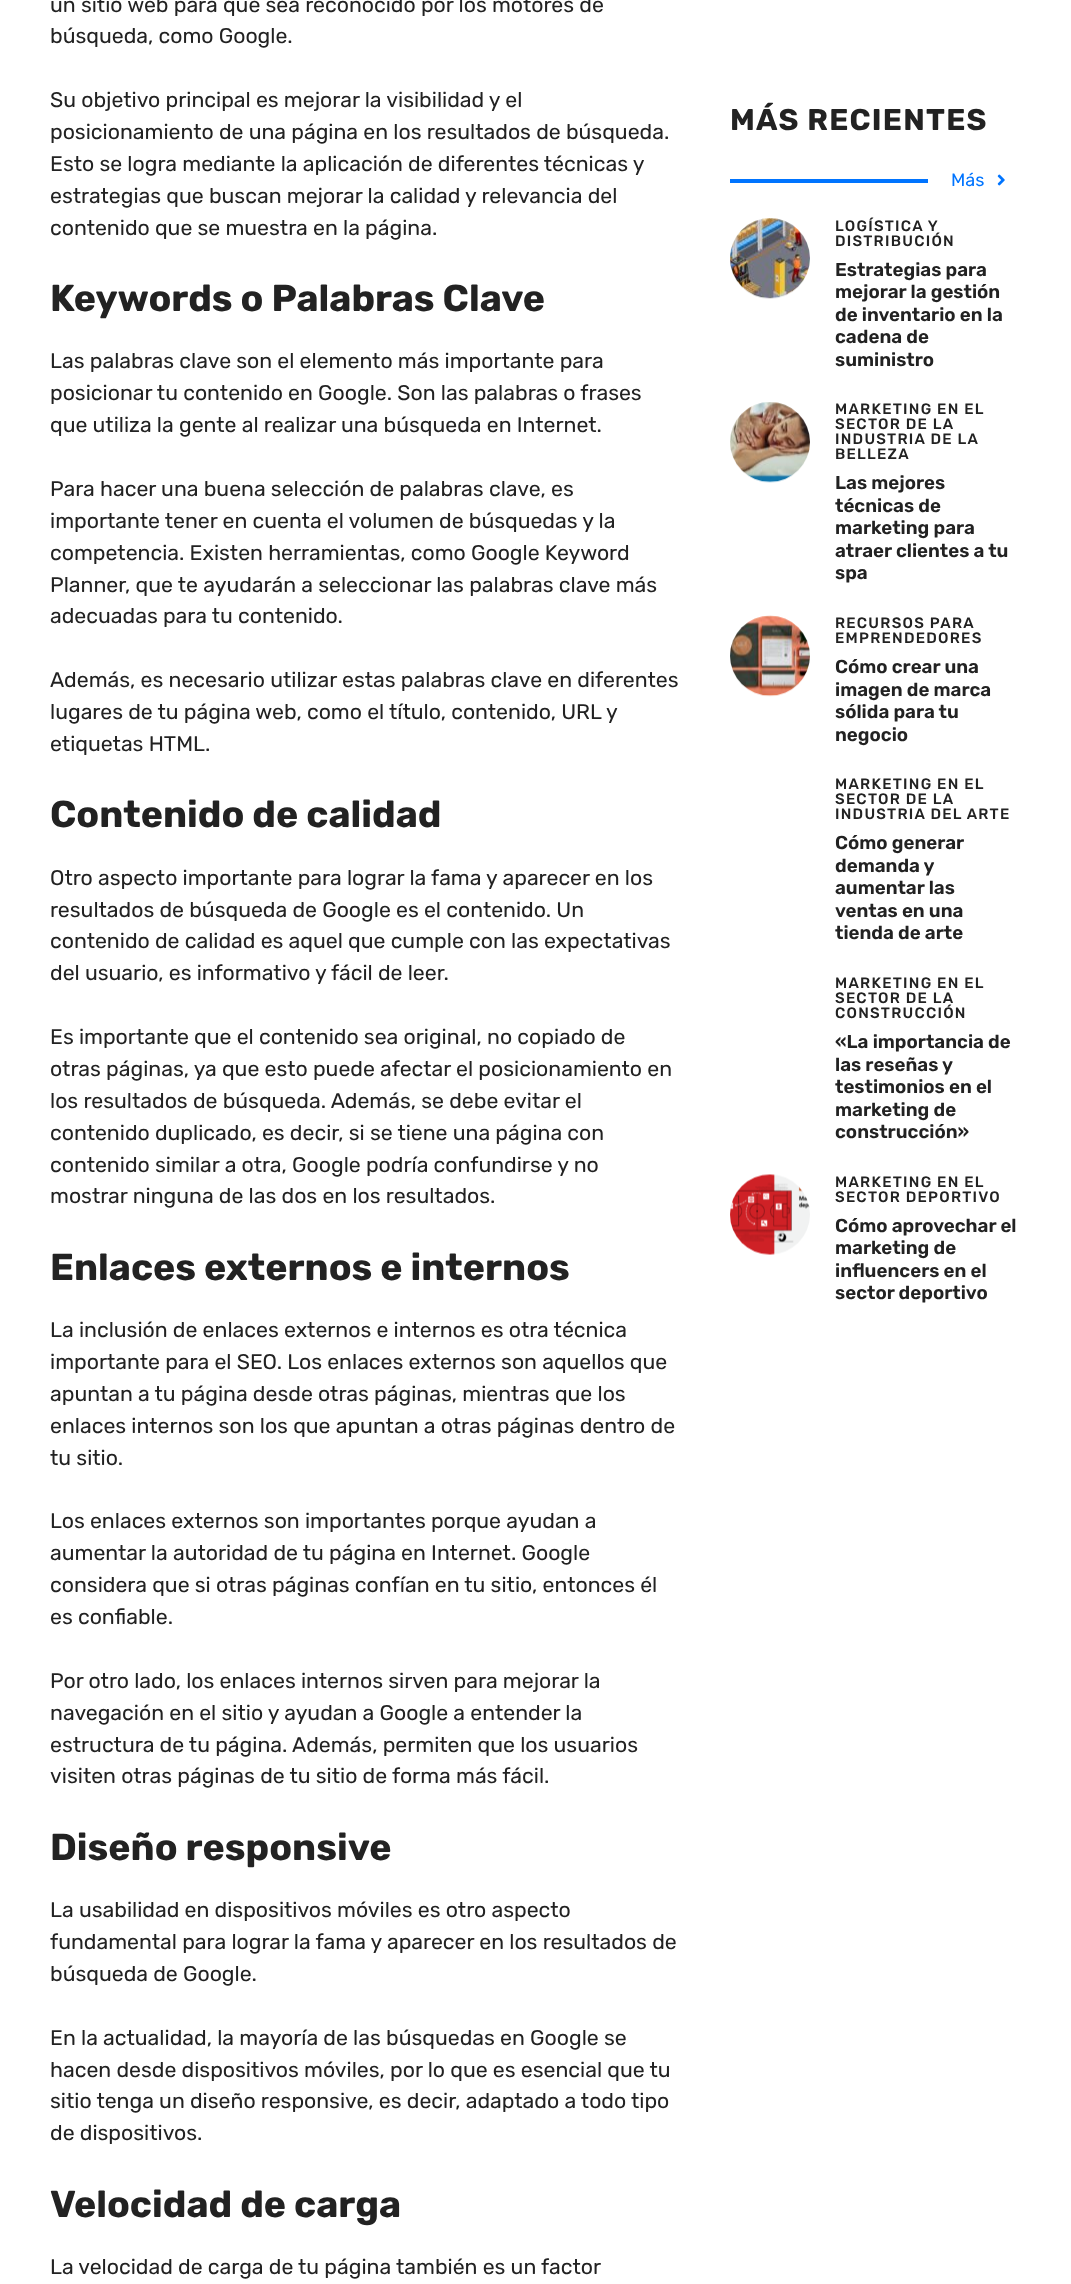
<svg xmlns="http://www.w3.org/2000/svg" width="1071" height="2284">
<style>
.a{font:21.25px Rubik;fill:#222}
.b{font:bold 37.5px Rubik;fill:#222}
.c{font:bold 30px Rubik;letter-spacing:1.25px;fill:#222}
.d{font:18px Rubik;fill:#0074ff}
.e{font:500 15px Rubik;letter-spacing:1.25px;fill:#222}
.f{font:600 18.75px Rubik;fill:#222}
</style>
<rect width="100%" height="100%" fill="#fff"/>
<path fill="#0074ff" d="M730 179h198v4H730z"/>
<image href="1.png" x="997" y="174" width="8" height="12"/>
<image href="2.png" x="730" y="218" width="80" height="81"/>
<image href="3.png" x="730" y="402" width="80" height="81"/>
<image href="4.png" x="730" y="615" width="80" height="82"/>
<image href="5.png" x="730" y="1174" width="80" height="81"/>
<text class="a" x="50" y="12">un sitio web para que sea reconocido por los motores de</text>
<text class="a" x="50" y="43">búsqueda, como Google.</text>
<text class="a" x="50" y="107">Su objetivo principal es mejorar la visibilidad y el</text>
<text class="a" x="50" y="139">posicionamiento de una página en los resultados de búsqueda.</text>
<text class="a" x="50" y="171">Esto se logra mediante la aplicación de diferentes técnicas y</text>
<text class="a" x="50" y="203">estrategias que buscan mejorar la calidad y relevancia del</text>
<text class="a" x="50" y="235">contenido que se muestra en la página.</text>
<text class="b" x="50" y="311">Keywords o Palabras Clave</text>
<text class="a" x="50" y="368">Las palabras clave son el elemento más importante para</text>
<text class="a" x="50" y="400">posicionar tu contenido en Google. Son las palabras o frases</text>
<text class="a" x="50" y="432">que utiliza la gente al realizar una búsqueda en Internet.</text>
<text class="a" x="50" y="496">Para hacer una buena selección de palabras clave, es</text>
<text class="a" x="50" y="528">importante tener en cuenta el volumen de búsquedas y la</text>
<text class="a" x="50" y="560">competencia. Existen herramientas, como Google Keyword</text>
<text class="a" x="50" y="592">Planner, que te ayudarán a seleccionar las palabras clave más</text>
<text class="a" x="50" y="623">adecuadas para tu contenido.</text>
<text class="a" x="50" y="687">Además, es necesario utilizar estas palabras clave en diferentes</text>
<text class="a" x="50" y="719">lugares de tu página web, como el título, contenido, URL y</text>
<text class="a" x="50" y="751">etiquetas HTML.</text>
<text class="b" x="50" y="827">Contenido de calidad</text>
<text class="a" x="50" y="885">Otro aspecto importante para lograr la fama y aparecer en los</text>
<text class="a" x="50" y="917">resultados de búsqueda de Google es el contenido. Un</text>
<text class="a" x="50" y="948">contenido de calidad es aquel que cumple con las expectativas</text>
<text class="a" x="50" y="980">del usuario, es informativo y fácil de leer.</text>
<text class="a" x="50" y="1044">Es importante que el contenido sea original, no copiado de</text>
<text class="a" x="50" y="1076">otras páginas, ya que esto puede afectar el posicionamiento en</text>
<text class="a" x="50" y="1108">los resultados de búsqueda. Además, se debe evitar el</text>
<text class="a" x="50" y="1140">contenido duplicado, es decir, si se tiene una página con</text>
<text class="a" x="50" y="1172">contenido similar a otra, Google podría confundirse y no</text>
<text class="a" x="50" y="1203">mostrar ninguna de las dos en los resultados.</text>
<text class="b" x="50" y="1280">Enlaces externos e internos</text>
<text class="a" x="50" y="1337">La inclusión de enlaces externos e internos es otra técnica</text>
<text class="a" x="50" y="1369">importante para el SEO. Los enlaces externos son aquellos que</text>
<text class="a" x="50" y="1401">apuntan a tu página desde otras páginas, mientras que los</text>
<text class="a" x="50" y="1433">enlaces internos son los que apuntan a otras páginas dentro de</text>
<text class="a" x="50" y="1465">tu sitio.</text>
<text class="a" x="50" y="1528">Los enlaces externos son importantes porque ayudan a</text>
<text class="a" x="50" y="1560">aumentar la autoridad de tu página en Internet. Google</text>
<text class="a" x="50" y="1592">considera que si otras páginas confían en tu sitio, entonces él</text>
<text class="a" x="50" y="1624">es confiable.</text>
<text class="a" x="50" y="1688">Por otro lado, los enlaces internos sirven para mejorar la</text>
<text class="a" x="50" y="1720">navegación en el sitio y ayudan a Google a entender la</text>
<text class="a" x="50" y="1752">estructura de tu página. Además, permiten que los usuarios</text>
<text class="a" x="50" y="1783">visiten otras páginas de tu sitio de forma más fácil.</text>
<text class="b" x="50" y="1860">Diseño responsive</text>
<text class="a" x="50" y="1917">La usabilidad en dispositivos móviles es otro aspecto</text>
<text class="a" x="50" y="1949">fundamental para lograr la fama y aparecer en los resultados de</text>
<text class="a" x="50" y="1981">búsqueda de Google.</text>
<text class="a" x="50" y="2045">En la actualidad, la mayoría de las búsquedas en Google se</text>
<text class="a" x="50" y="2077">hacen desde dispositivos móviles, por lo que es esencial que tu</text>
<text class="a" x="50" y="2108">sitio tenga un diseño responsive, es decir, adaptado a todo tipo</text>
<text class="a" x="50" y="2140">de dispositivos.</text>
<text class="b" x="50" y="2217">Velocidad de carga</text>
<text class="a" x="50" y="2274">La velocidad de carga de tu página también es un factor</text>
<text class="c" x="730" y="130">MÁS RECIENTES</text>
<text class="d" x="951" y="186">Más</text>
<text class="e" x="835" y="231">LOGÍSTICA Y</text>
<text class="e" x="835" y="246">DISTRIBUCIÓN</text>
<text class="f" x="835" y="276">Estrategias para</text>
<text class="f" x="835" y="298">mejorar la gestión</text>
<text class="f" x="835" y="321">de inventario en la</text>
<text class="f" x="835" y="343">cadena de</text>
<text class="f" x="835" y="366">suministro</text>
<text class="e" x="835" y="414">MARKETING EN EL</text>
<text class="e" x="835" y="429">SECTOR DE LA</text>
<text class="e" x="835" y="444">INDUSTRIA DE LA</text>
<text class="e" x="835" y="459">BELLEZA</text>
<text class="f" x="835" y="489">Las mejores</text>
<text class="f" x="835" y="512">técnicas de</text>
<text class="f" x="835" y="534">marketing para</text>
<text class="f" x="835" y="557">atraer clientes a tu</text>
<text class="f" x="835" y="579">spa</text>
<text class="e" x="835" y="628">RECURSOS PARA</text>
<text class="e" x="835" y="643">EMPRENDEDORES</text>
<text class="f" x="835" y="673">Cómo crear una</text>
<text class="f" x="835" y="696">imagen de marca</text>
<text class="f" x="835" y="718">sólida para tu</text>
<text class="f" x="835" y="741">negocio</text>
<text class="e" x="835" y="789">MARKETING EN EL</text>
<text class="e" x="835" y="804">SECTOR DE LA</text>
<text class="e" x="835" y="819">INDUSTRIA DEL ARTE</text>
<text class="f" x="835" y="849">Cómo generar</text>
<text class="f" x="835" y="872">demanda y</text>
<text class="f" x="835" y="894">aumentar las</text>
<text class="f" x="835" y="917">ventas en una</text>
<text class="f" x="835" y="939">tienda de arte</text>
<text class="e" x="835" y="988">MARKETING EN EL</text>
<text class="e" x="835" y="1003">SECTOR DE LA</text>
<text class="e" x="835" y="1018">CONSTRUCCIÓN</text>
<text class="f" x="835" y="1048">«La importancia de</text>
<text class="f" x="835" y="1071">las reseñas y</text>
<text class="f" x="835" y="1093">testimonios en el</text>
<text class="f" x="835" y="1116">marketing de</text>
<text class="f" x="835" y="1138">construcción»</text>
<text class="e" x="835" y="1187">MARKETING EN EL</text>
<text class="e" x="835" y="1202">SECTOR DEPORTIVO</text>
<text class="f" x="835" y="1232">Cómo aprovechar el</text>
<text class="f" x="835" y="1254">marketing de</text>
<text class="f" x="835" y="1277">influencers en el</text>
<text class="f" x="835" y="1299">sector deportivo</text>
</svg>
